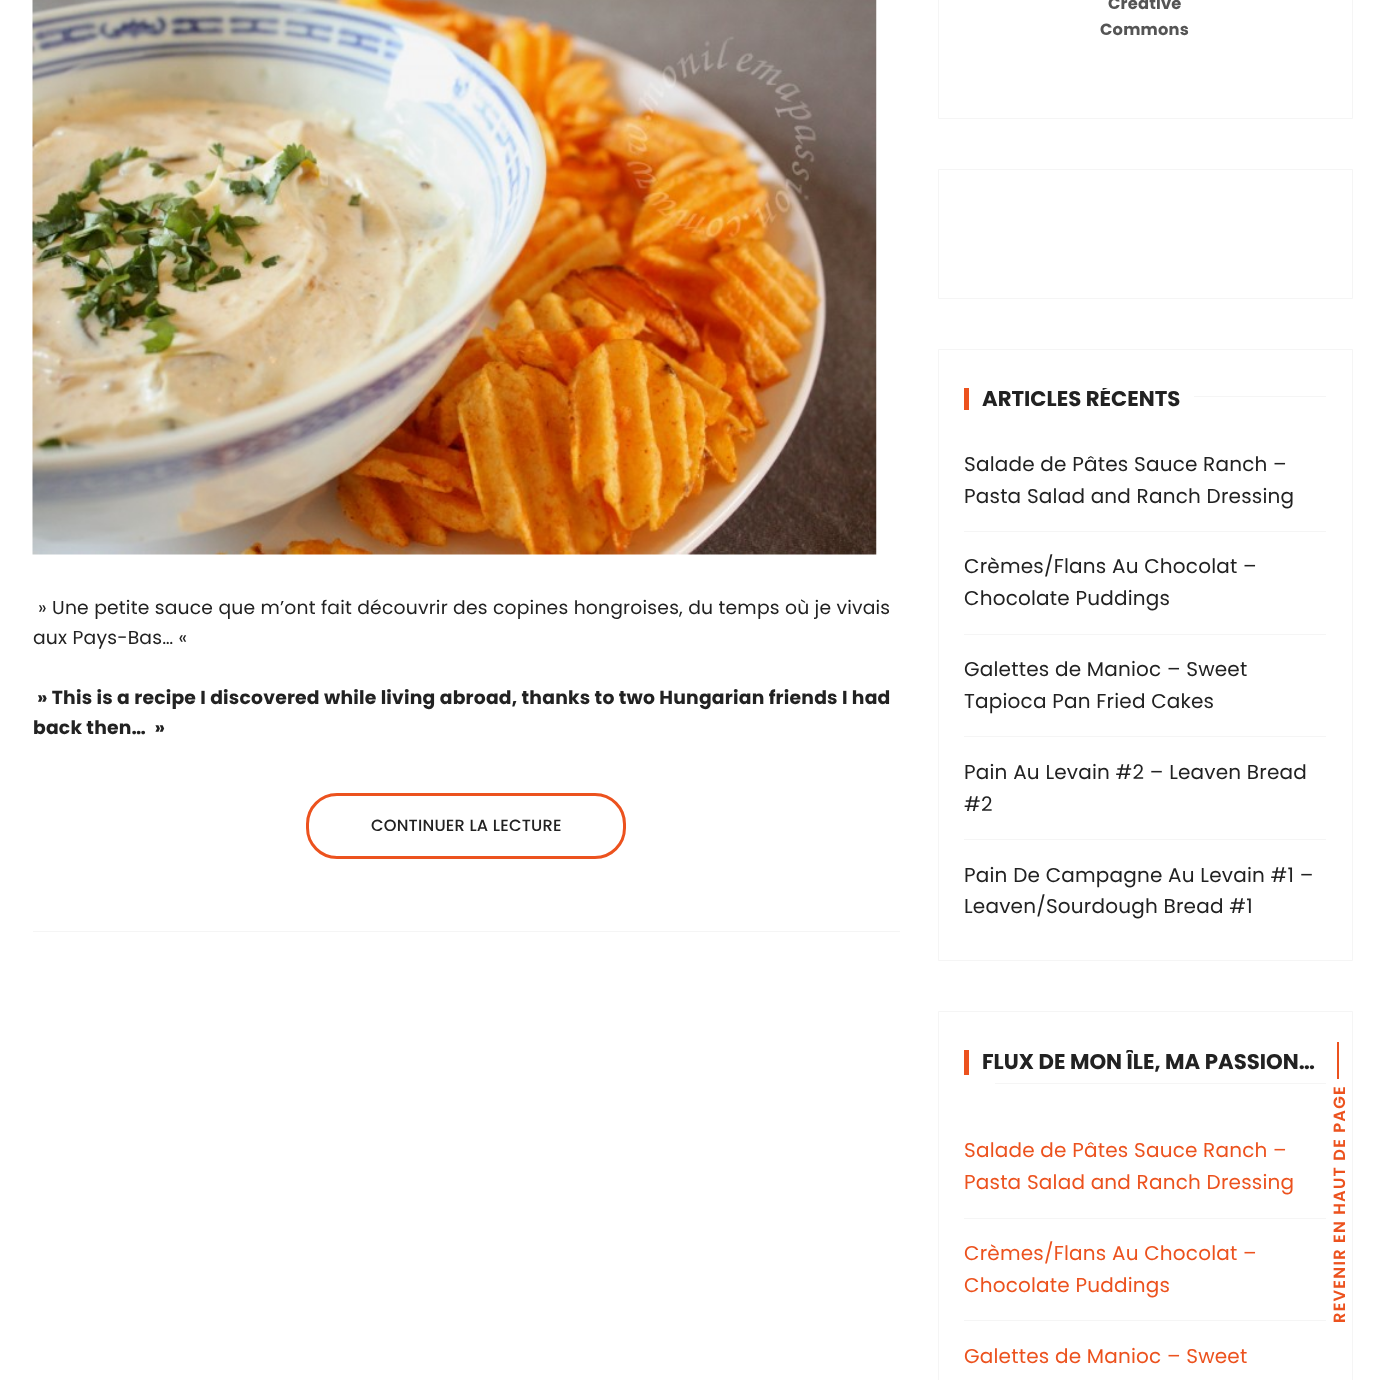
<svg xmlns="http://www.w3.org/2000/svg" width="1385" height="1380">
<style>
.a{font:18.75px Poppins;letter-spacing:0.2px;fill:#222}
.b{font:bold 18.75px Poppins;letter-spacing:0.2px;fill:#222}
.c{font:500 16.25px Poppins;letter-spacing:0.2px;fill:#222}
.d{font:bold 16.25px Poppins;letter-spacing:0.2px;fill:#555}
.e{font:bold 21.25px Poppins;fill:#222}
.f{font:20px Poppins;letter-spacing:0.2px;fill:#222}
.g{font:20px Poppins;letter-spacing:0.2px;fill:#ec521e}
.h{font:600 16.25px Poppins;letter-spacing:1.25px;fill:#ec521e}
</style>
<defs>
<clipPath id="clip1"><path d="M964 388h362v22H964z"/></clipPath>
<clipPath id="clip2"><path d="M964 1050h362v48H964z"/></clipPath>
</defs>
<rect width="100%" height="100%" fill="#fff"/>
<path fill="#f5f5f5" d="M33 931h867v1H33z"/>
<image href="1.png" x="32" y="0" width="845" height="555"/>
<rect fill="none" stroke="#ec521e" stroke-width="3" x="307.5" y="794.5" width="317" height="63" rx="29.5"/>
<path fill="none" stroke="#f5f5f5" d="M938.5 -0.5h414v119H938.5z"/>
<path fill="none" stroke="#f5f5f5" d="M938.5 169.5h414v129H938.5z"/>
<path fill="none" stroke="#f5f5f5" d="M938.5 349.5h414v611H938.5z"/>
<path fill="#ec521e" d="M964 388h5v22H964z"/>
<path fill="#f5f5f5" d="M1194 396h132v1H1194z"/>
<path fill="#f5f5f5" d="M964 531h362v1H964z"/>
<path fill="#f5f5f5" d="M964 634h362v1H964z"/>
<path fill="#f5f5f5" d="M964 736h362v1H964z"/>
<path fill="#f5f5f5" d="M964 839h362v1H964z"/>
<path fill="none" stroke="#f5f5f5" d="M938.5 1011.5h414v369H938.5z"/>
<path fill="#ec521e" d="M964 1050h5v25H964z"/>
<path fill="#f5f5f5" d="M995 1083h331v1H995z"/>
<path fill="#f5f5f5" d="M964 1218h362v1H964z"/>
<path fill="#f5f5f5" d="M964 1320h362v1H964z"/>
<path fill="#ec521e" d="M1337 1042h2v37H1337z"/>
<text class="a" x="38" y="614">» Une petite sauce que m’ont fait découvrir des copines hongroises, du temps où je vivais</text>
<text class="a" x="33" y="644">aux Pays-Bas… «</text>
<text class="b" x="37" y="704">» This is a recipe I discovered while living abroad, thanks to two Hungarian friends I had</text>
<text class="b" xml:space="preserve" x="33" y="734">back then…  »</text>
<text class="c" x="371" y="831">CONTINUER LA LECTURE</text>
<text class="d" x="1108" y="9">Creative</text>
<text class="d" x="1100" y="35">Commons</text>
<g clip-path="url(#clip1)">
<text class="e" x="982" y="406">ARTICLES RÉCENTS</text>
</g>
<text class="f" x="964" y="471">Salade de Pâtes Sauce Ranch –</text>
<text class="f" x="964" y="503">Pasta Salad and Ranch Dressing</text>
<text class="f" x="964" y="573">Crèmes/Flans Au Chocolat –</text>
<text class="f" x="964" y="605">Chocolate Puddings</text>
<text class="f" x="964" y="676">Galettes de Manioc – Sweet</text>
<text class="f" x="964" y="708">Tapioca Pan Fried Cakes</text>
<text class="f" x="964" y="779">Pain Au Levain #2 – Leaven Bread</text>
<text class="f" x="964" y="811">#2</text>
<text class="f" x="964" y="882">Pain De Campagne Au Levain #1 –</text>
<text class="f" x="964" y="913">Leaven/Sourdough Bread #1</text>
<g clip-path="url(#clip2)">
<text class="e" x="982" y="1069">FLUX DE MON ÎLE, MA PASSION…</text>
</g>
<text class="g" x="964" y="1157">Salade de Pâtes Sauce Ranch –</text>
<text class="g" x="964" y="1189">Pasta Salad and Ranch Dressing</text>
<text class="g" x="964" y="1260">Crèmes/Flans Au Chocolat –</text>
<text class="g" x="964" y="1292">Chocolate Puddings</text>
<text class="g" x="964" y="1363">Galettes de Manioc – Sweet</text>
<text class="h" x="1345" y="1323" transform="rotate(-90 1345 1323)">REVENIR EN HAUT DE PAGE</text>
</svg>
